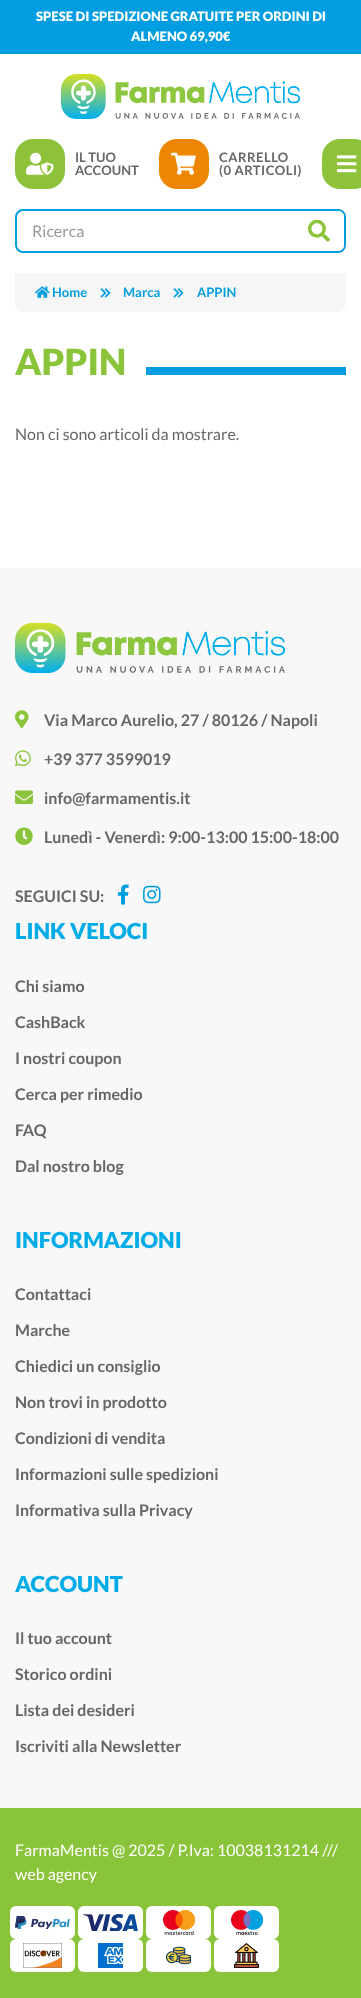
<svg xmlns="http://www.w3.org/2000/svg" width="361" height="1998">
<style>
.a{font:900 13px Lato;fill:#fff}
.b{font:bold 13px Lato;fill:#666}
.c{font:bold 13px Lato;letter-spacing:0.5px;fill:#666}
.d{font:16px Lato;fill:#999}
.e{font:bold 13px Lato;fill:#009ee0}
.f{font:900 36px Lato;fill:#8ac43a}
.g{font:16px Lato;fill:#666}
.h{font:bold 16px Lato;fill:#666}
.i{font:900 22px Lato;fill:#00ace7}
.j{font:16px Lato;fill:#fff}
</style>
<rect width="100%" height="100%" fill="#fff"/>
<path fill="#009ee0" d="M0 0h361v54H0z"/>
<image href="1.png" x="61" y="74" width="239" height="45"/>
<rect fill="#8ec23b" x="15" y="139" width="50" height="50" rx="18"/>
<image href="2.png" x="26" y="152" width="28" height="23"/>
<rect fill="#ed8601" x="159" y="139" width="50" height="50" rx="18"/>
<image href="3.png" x="171" y="152" width="25" height="23"/>
<rect fill="#8ec23b" x="322" y="139" width="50" height="50" rx="18"/>
<image href="4.png" x="337" y="155" width="20" height="18"/>
<rect fill="none" stroke="#009ee0" stroke-width="2" x="16" y="210" width="329" height="42" rx="7"/>
<rect fill="#fff" x="17" y="211" width="278" height="40" rx="8"/>
<path fill="#fff" d="M294 211h44c3.5 0 6 2.5 6 6v28c0 3.5-2.5 6-6 6h-44z"/>
<image href="5.png" x="308" y="219" width="22" height="23"/>
<path fill="#f6f6f6" d="M15 273h331v29c0 5.5-4.5 10-10 10h-311c-5.5 0-10-4.5-10-10z"/>
<image href="6.png" x="35" y="286" width="15" height="12"/>
<image href="7.png" x="100" y="288" width="11" height="10"/>
<image href="7.png" x="173" y="288" width="11" height="10"/>
<path fill="#009ee0" d="M146 367h200v8H146z"/>
<path fill="#f8f8f8" d="M0 568h361v1240H0z"/>
<image href="8.png" x="15" y="623" width="270" height="50"/>
<image href="9.png" x="15" y="710" width="14" height="19"/>
<image href="10.png" x="15" y="750" width="16" height="17"/>
<image href="11.png" x="15" y="790" width="18" height="14"/>
<image href="12.png" x="15" y="827" width="18" height="18"/>
<image href="13.png" x="117" y="884" width="12" height="21"/>
<image href="14.png" x="143" y="885" width="18" height="19"/>
<path fill="#8ac43a" d="M0 1808h361v190H0z"/>
<rect fill="#fff" x="10" y="1906" width="65" height="33" rx="6"/>
<image href="15.png" x="15" y="1916" width="55" height="13"/>
<rect fill="#fff" x="78" y="1906" width="65" height="33" rx="6"/>
<image href="16.png" x="83" y="1914" width="55" height="17"/>
<rect fill="#fff" x="146" y="1906" width="65" height="33" rx="6"/>
<image href="17.png" x="163" y="1910" width="32" height="25"/>
<rect fill="#fff" x="214" y="1906" width="65" height="33" rx="6"/>
<image href="18.png" x="231" y="1910" width="32" height="25"/>
<rect fill="#fff" x="10" y="1939" width="65" height="33" rx="6"/>
<image href="19.png" x="23" y="1943" width="39" height="25"/>
<rect fill="#fff" x="78" y="1939" width="65" height="33" rx="6"/>
<image href="20.png" x="98" y="1943" width="25" height="25"/>
<rect fill="#fff" x="146" y="1939" width="65" height="33" rx="6"/>
<image href="21.png" x="166" y="1946" width="25" height="19"/>
<rect fill="#fff" x="214" y="1939" width="65" height="33" rx="6"/>
<image href="22.png" x="234" y="1943" width="25" height="25"/>
<text class="a" x="36" y="21">SPESE DI SPEDIZIONE GRATUITE PER ORDINI DI</text>
<text class="a" x="131" y="41">ALMENO 69,90€</text>
<text class="b" x="75" y="162">IL TUO</text>
<text class="b" x="75" y="175">ACCOUNT</text>
<text class="c" x="219" y="162">CARRELLO</text>
<text class="c" x="219" y="175">(0 ARTICOLI)</text>
<text class="d" x="32" y="237">Ricerca</text>
<text class="e" x="52" y="297">Home</text>
<text class="e" x="123" y="297">Marca</text>
<text class="e" x="197" y="297">APPIN</text>
<text class="f" x="15" y="375">APPIN</text>
<text class="g" x="15" y="440">Non ci sono articoli da mostrare.</text>
<text class="h" x="44" y="726">Via Marco Aurelio, 27 / 80126 / Napoli</text>
<text class="h" x="44" y="765">+39 377 3599019</text>
<text class="h" x="44" y="804">info@farmamentis.it</text>
<text class="h" x="44" y="843">Lunedì - Venerdì: 9:00-13:00 15:00-18:00</text>
<text class="h" x="15" y="902">SEGUICI SU:</text>
<text class="i" x="15" y="939">LINK VELOCI</text>
<text class="h" x="15" y="992">Chi siamo</text>
<text class="h" x="15" y="1028">CashBack</text>
<text class="h" x="15" y="1064">I nostri coupon</text>
<text class="h" x="15" y="1100">Cerca per rimedio</text>
<text class="h" x="15" y="1136">FAQ</text>
<text class="h" x="15" y="1172">Dal nostro blog</text>
<text class="i" x="15" y="1248">INFORMAZIONI</text>
<text class="h" x="15" y="1300">Contattaci</text>
<text class="h" x="15" y="1336">Marche</text>
<text class="h" x="15" y="1372">Chiedici un consiglio</text>
<text class="h" x="15" y="1408">Non trovi in prodotto</text>
<text class="h" x="15" y="1444">Condizioni di vendita</text>
<text class="h" x="15" y="1480">Informazioni sulle spedizioni</text>
<text class="h" x="15" y="1516">Informativa sulla Privacy</text>
<text class="i" x="15" y="1592">ACCOUNT</text>
<text class="h" x="15" y="1644">Il tuo account</text>
<text class="h" x="15" y="1680">Storico ordini</text>
<text class="h" x="15" y="1716">Lista dei desideri</text>
<text class="h" x="15" y="1752">Iscriviti alla Newsletter</text>
<text class="j" x="15" y="1856">FarmaMentis @ 2025 / P.Iva: 10038131214 ///</text>
<text class="j" x="15" y="1880">web agency</text>
</svg>
